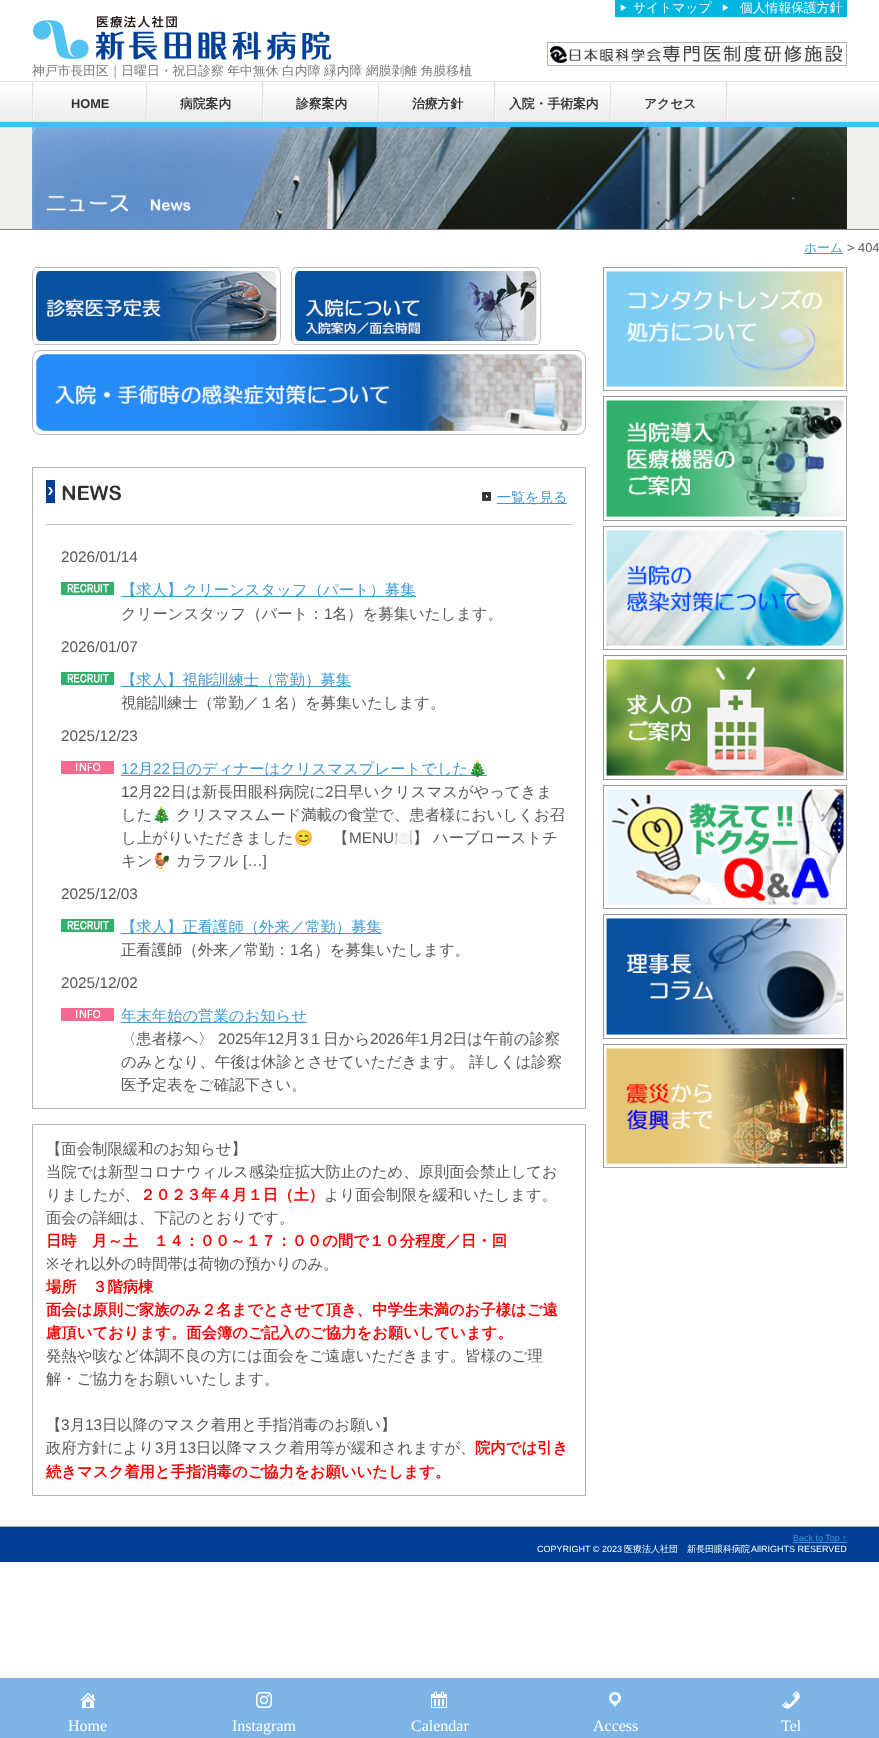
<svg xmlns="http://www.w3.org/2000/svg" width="879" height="1738">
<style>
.a{font:500 12.8px WenQuanYi Zen Hei;fill:#fff}
.b{font:500 12.8px WenQuanYi Zen Hei;fill:#797979}
.c{font:bold 12.8px Liberation Sans;fill:#333}
.d{font:bold 12.8px WenQuanYi Zen Hei;fill:#333}
.e{font:500 12.8px WenQuanYi Zen Hei;fill:#429ad2}
.f{font:12.8px Liberation Sans;fill:#595757}
.g{font:500 14px WenQuanYi Zen Hei;fill:#429ad2}
.h{font:15.35px Liberation Sans;fill:#595757}
.i{font:500 15.35px WenQuanYi Zen Hei;fill:#429ad2}
.j{font:500 15.35px WenQuanYi Zen Hei;fill:#595757}
.k{font:15.35px Liberation Sans;fill:#429ad2}
.l{font:15.35px Noto Color Emoji;fill:#429ad2}
.m{font:15.35px Noto Color Emoji;fill:#595757}
.n{font:bold 15.35px WenQuanYi Zen Hei;fill:#f00}
.o{font:15.35px Noto Sans;fill:#595757}
.p{font:9px Liberation Sans;fill:#429ad2}
.q{font:9px Liberation Sans;fill:#fff}
.r{font:500 9px WenQuanYi Zen Hei;fill:#fff}
.s{font:16px Liberation Serif;fill:#fff}
</style>
<rect width="100%" height="100%" fill="#fff"/>
<path fill="#efeeeb" d="M0 127h879v102H0z"/>
<image href="1.png" x="0" y="0" width="879" height="127"/>
<path fill="#878787" d="M0 229h879v1H0z"/>
<path fill="#00b5de" d="M615 0h232v17H615z"/>
<image href="2.png" x="620" y="4" width="7" height="7"/>
<image href="2.png" x="722" y="4" width="7" height="7"/>
<image href="3.png" x="547" y="42" width="300" height="24"/>
<image href="4.png" x="33" y="16" width="298" height="44"/>
<image href="5.png" x="32" y="82" width="2" height="39"/>
<image href="5.png" x="146" y="82" width="2" height="39"/>
<image href="5.png" x="262" y="82" width="2" height="39"/>
<image href="5.png" x="378" y="82" width="2" height="39"/>
<image href="5.png" x="494" y="82" width="2" height="39"/>
<image href="5.png" x="610" y="82" width="2" height="39"/>
<image href="5.png" x="726" y="82" width="2" height="39"/>
<image href="6.png" x="32" y="127" width="815" height="102"/>
<path fill="#429ad2" d="M804 253h39v1H804z"/>
<image href="7.png" x="32" y="267" width="249" height="78"/>
<image href="8.png" x="291" y="267" width="250" height="78"/>
<image href="9.png" x="32" y="350" width="554" height="85"/>
<path fill="none" stroke="#b1b1b1" d="M32.5 467.5h553v641H32.5z"/>
<path fill="#c5c5c5" d="M46 524h526v1H46z"/>
<image href="10.png" x="46" y="480" width="75" height="23"/>
<image href="11.png" x="482" y="492" width="9" height="9"/>
<path fill="#429ad2" d="M497 503h70v1H497z"/>
<image href="12.png" x="61" y="582" width="53" height="13"/>
<path fill="#429ad2" d="M121 596h295v1H121z"/>
<image href="12.png" x="61" y="672" width="53" height="13"/>
<path fill="#429ad2" d="M121 686h230v1H121z"/>
<image href="13.png" x="61" y="761" width="53" height="13"/>
<path fill="#429ad2" d="M121 775h366v1H121z"/>
<image href="12.png" x="61" y="919" width="53" height="13"/>
<path fill="#429ad2" d="M121 933h261v1H121z"/>
<image href="13.png" x="61" y="1008" width="53" height="13"/>
<path fill="#429ad2" d="M121 1022h186v1H121z"/>
<path fill="none" stroke="#b1b1b1" d="M32.5 1124.5h553v371H32.5z"/>
<image href="14.png" x="603" y="267" width="244" height="124"/>
<image href="15.png" x="603" y="396" width="244" height="125"/>
<image href="16.png" x="603" y="526" width="244" height="124"/>
<image href="17.png" x="603" y="655" width="244" height="125"/>
<image href="18.png" x="603" y="785" width="244" height="124"/>
<image href="19.png" x="603" y="914" width="244" height="125"/>
<image href="20.png" x="603" y="1044" width="244" height="124"/>
<path fill="#003f98" d="M0 1527h879v35H0z"/>
<path fill="#aaa" d="M0 1526h879v1H0z"/>
<path fill="#429ad2" d="M793 1542h54v1H793z"/>
<path fill="#7db4e6" d="M0 1678h879v60H0z"/>
<image href="21.png" x="80" y="1692" width="16" height="16"/>
<image href="22.png" x="256" y="1692" width="16" height="16"/>
<image href="23.png" x="431" y="1691" width="16" height="17"/>
<image href="24.png" x="609" y="1692" width="12" height="16"/>
<image href="25.png" x="782" y="1691" width="18" height="18"/>
<text class="a" x="633" y="12">サイトマップ</text>
<text class="a" x="740" y="12">個人情報保護方針</text>
<text class="b" x="32" y="75" word-spacing="-0.25">神戸市長田区｜日曜日・祝日診察 年中無休 白内障 緑内障 網膜剥離 角膜移植</text>
<text class="c" x="71" y="108">HOME</text>
<text class="d" x="180" y="108">病院案内</text>
<text class="d" x="296" y="108">診察案内</text>
<text class="d" x="412" y="108">治療方針</text>
<text class="d" x="509" y="108">入院・手術案内</text>
<text class="d" x="644" y="108">アクセス</text>
<text class="e" x="804" y="252">ホーム</text>
<text class="f" x="847" y="252">&gt; 404</text>
<text class="g" x="497" y="502">一覧を見る</text>
<text class="h" x="61" y="562">2026/01/14</text>
<text class="i" x="121" y="595">【求人】クリーンスタッフ（パート）募集</text>
<text class="j" x="121" y="619">クリーンスタッフ（パート：</text>
<text class="h" x="324" y="619">1</text>
<text class="j" x="332" y="619">名）を募集いたします。</text>
<text class="h" x="61" y="652">2026/01/07</text>
<text class="i" x="121" y="685">【求人】視能訓練士（常勤）募集</text>
<text class="j" x="121" y="708">視能訓練士（常勤／１名）を募集いたします。</text>
<text class="h" x="61" y="741">2025/12/23</text>
<text class="k" x="121" y="774">12</text>
<text class="i" x="138" y="774">月</text>
<text class="k" x="153" y="774">22</text>
<text class="i" x="171" y="774">日のディナーはクリスマスプレートでした</text>
<text class="l" x="468" y="774">🎄</text>
<text class="h" x="121" y="797">12</text>
<text class="j" x="138" y="797">月</text>
<text class="h" x="153" y="797">22</text>
<text class="j" x="171" y="797">日は新長田眼科病院に</text>
<text class="h" x="325" y="797">2</text>
<text class="j" x="333" y="797">日早いクリスマスがやってきま</text>
<text class="j" x="121" y="820">した</text>
<text class="m" x="152" y="820">🎄</text>
<text class="j" x="176" y="820">クリスマスムード満載の食堂で、患者様においしくお召</text>
<text class="j" x="121" y="843">し上がりいただきました</text>
<text class="m" x="294" y="843">😊</text>
<text class="j" x="333" y="843">【</text>
<text class="h" x="349" y="843">MENU</text>
<text class="m" x="394" y="843">🍽</text>
<text class="j" x="413" y="843">】 ハーブローストチ</text>
<text class="j" x="121" y="866">キン</text>
<text class="m" x="152" y="866">🐓</text>
<text class="j" x="176" y="866">カラフル</text>
<text class="h" x="243" y="866">[…]</text>
<text class="h" x="61" y="899">2025/12/03</text>
<text class="i" x="121" y="932">【求人】正看護師（外来／常勤）募集</text>
<text class="j" x="121" y="955">正看護師（外来／常勤：</text>
<text class="h" x="290" y="955">1</text>
<text class="j" x="299" y="955">名）を募集いたします。</text>
<text class="h" x="61" y="988">2025/12/02</text>
<text class="i" x="121" y="1021">年末年始の営業のお知らせ</text>
<text class="j" x="121" y="1044">〈患者様へ〉</text>
<text class="h" x="218" y="1044">2025</text>
<text class="j" x="252" y="1044">年</text>
<text class="h" x="267" y="1044">12</text>
<text class="j" x="284" y="1044">月</text>
<text class="h" x="300" y="1044">3</text>
<text class="j" x="308" y="1044">１日から</text>
<text class="h" x="370" y="1044">2026</text>
<text class="j" x="405" y="1044">年</text>
<text class="h" x="420" y="1044">1</text>
<text class="j" x="429" y="1044">月</text>
<text class="h" x="444" y="1044">2</text>
<text class="j" x="452" y="1044">日は午前の診察</text>
<text class="j" x="121" y="1067">のみとなり、午後は休診とさせていただきます。 詳しくは診察</text>
<text class="j" x="121" y="1090">医予定表をご確認下さい。</text>
<text class="j" x="46" y="1154">【面会制限緩和のお知らせ】</text>
<text class="j" x="46" y="1177">当院では新型コロナウィルス感染症拡大防止のため、原則面会禁止してお</text>
<text class="j" x="46" y="1200">りましたが、</text>
<text class="n" x="140" y="1200">２０２３年４月１日（土）</text>
<text class="j" x="324" y="1200">より面会制限を緩和いたします。</text>
<text class="j" x="46" y="1223">面会の詳細は、下記のとおりです。</text>
<text class="n" x="46" y="1246">日時　月～土　１４：００～１７：００の間で１０分程度／日・回</text>
<text class="o" x="46" y="1269">※</text>
<text class="j" x="59" y="1269">それ以外の時間帯は荷物の預かりのみ。</text>
<text class="n" x="46" y="1292">場所　３階病棟</text>
<text class="n" x="46" y="1315">面会は原則ご家族のみ２名までとさせて頂き、中学生未満のお子様はご遠</text>
<text class="n" x="46" y="1338">慮頂いております。面会簿のご記入のご協力をお願いしています。</text>
<text class="j" x="46" y="1361">発熱や咳など体調不良の方には面会をご遠慮いただきます。皆様のご理</text>
<text class="j" x="46" y="1384">解・ご協力をお願いいたします。</text>
<text class="j" x="46" y="1430">【</text>
<text class="h" x="61" y="1430">3</text>
<text class="j" x="70" y="1430">月</text>
<text class="h" x="85" y="1430">13</text>
<text class="j" x="102" y="1430">日以降のマスク着用と手指消毒のお願い】</text>
<text class="j" x="46" y="1453">政府方針により</text>
<text class="h" x="155" y="1453">3</text>
<text class="j" x="163" y="1453">月</text>
<text class="h" x="179" y="1453">13</text>
<text class="j" x="196" y="1453">日以降マスク着用等が緩和されますが、</text>
<text class="n" x="475" y="1453">院内では引き</text>
<text class="n" x="46" y="1477">続きマスク着用と手指消毒のご協力をお願いいたします。</text>
<text class="p" x="793" y="1541">Back to Top ↑</text>
<text class="q" x="537" y="1552">COPYRIGHT © 2023</text>
<text class="r" x="624" y="1552">医療法人社団　新長田眼科病院</text>
<text class="q" x="751" y="1552">AllRIGHTS RESERVED</text>
<text class="s" x="68" y="1731">Home</text>
<text class="s" x="232" y="1731">Instagram</text>
<text class="s" x="411" y="1731">Calendar</text>
<text class="s" x="593" y="1731">Access</text>
<text class="s" x="781" y="1731">Tel</text>
</svg>
